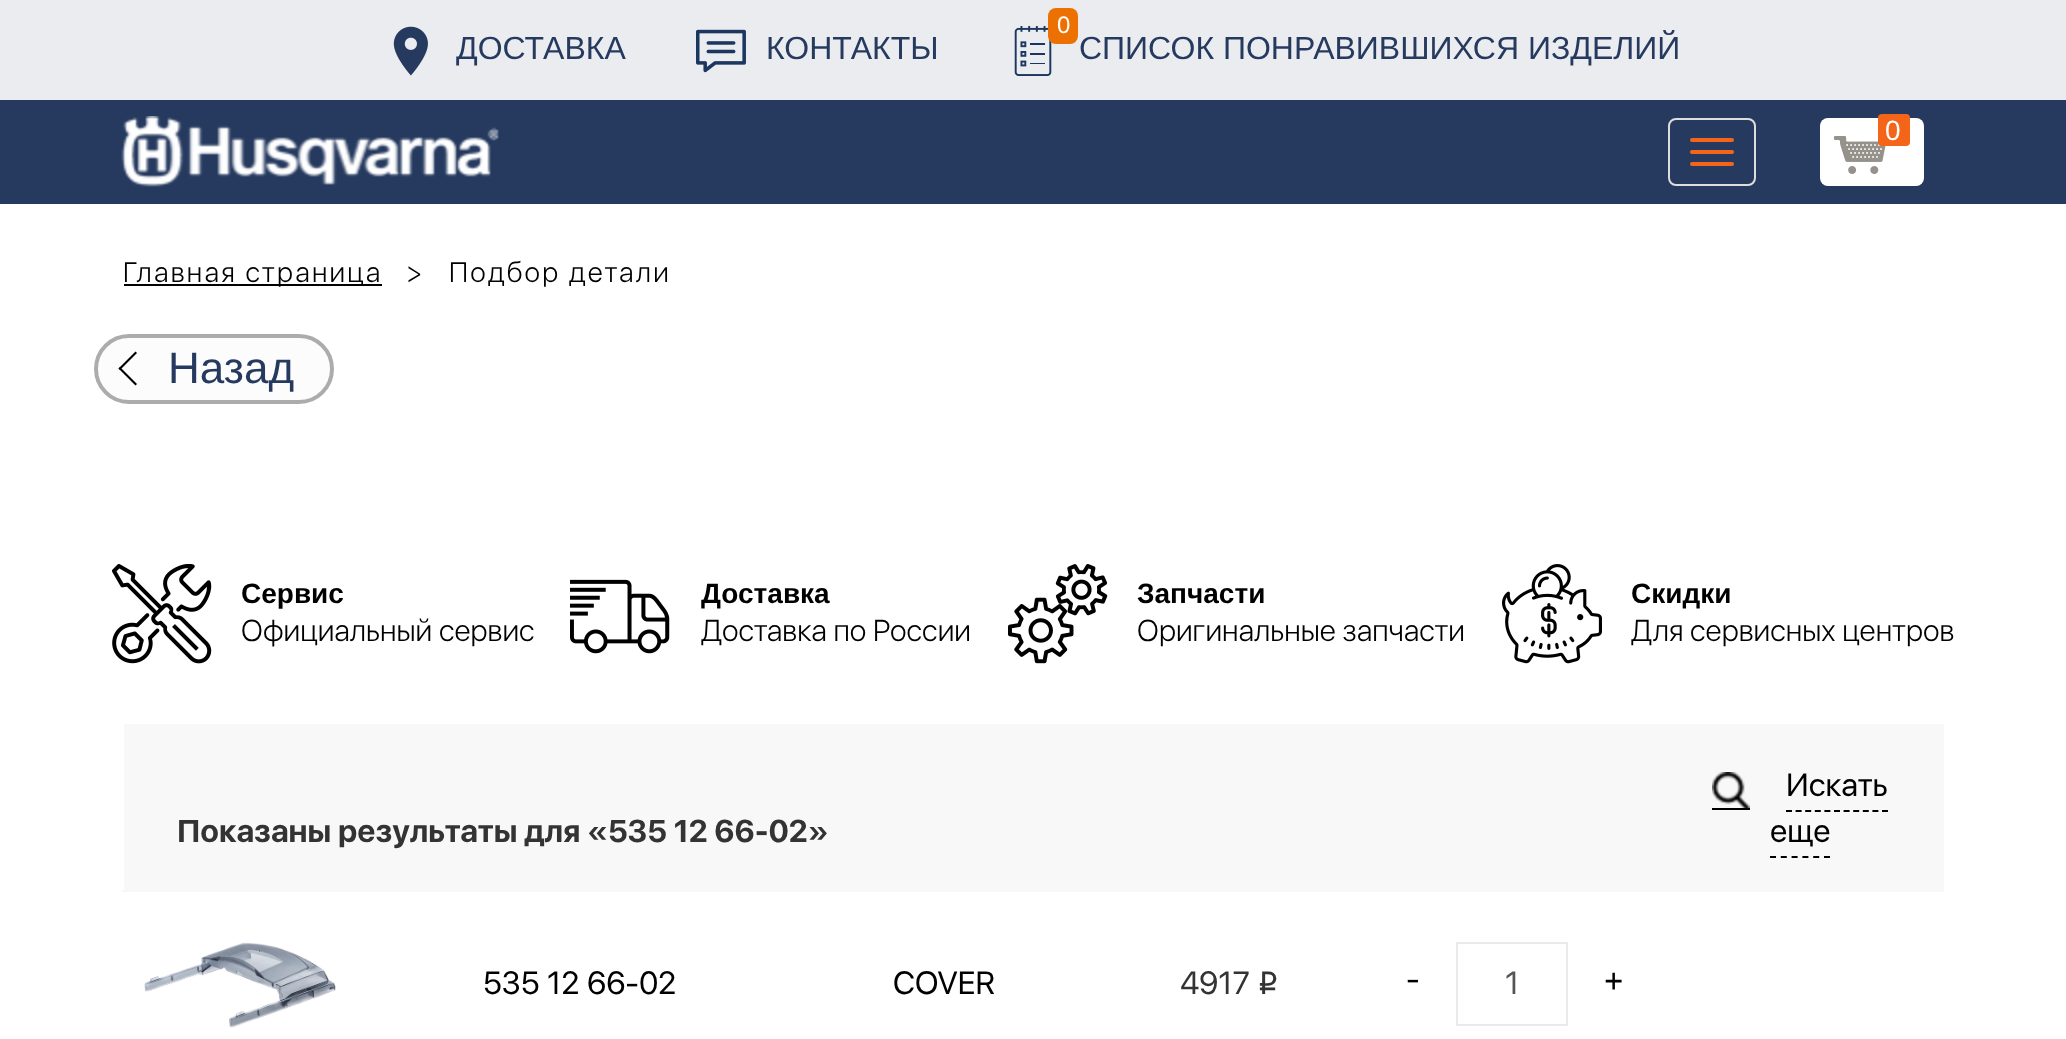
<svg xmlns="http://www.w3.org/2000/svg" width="2066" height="1039">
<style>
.a{font:32px Liberation Sans;fill:#263a5f}
.b{font:24px Liberation Sans;fill:#fff}
.c{font:28px Liberation Sans;fill:#fff}
.d{font:300 28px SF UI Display;letter-spacing:2.25px;fill:#000}
.e{font:44px Liberation Sans;fill:#263a5f}
.f{font:bold 28px Liberation Sans;fill:#000}
.g{font:300 30px SF UI Display;fill:#000}
.h{font:bold 32px SF UI Display;fill:#333}
.i{font:32px SF UI Display;fill:#000}
.j{font:32px SF UI Display;fill:#333}
.k{font:32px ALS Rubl;fill:#333}
.l{font:32px SF UI Display;fill:#555}
</style>
<rect width="100%" height="100%" fill="#fff"/>
<path fill="#eaecf0" d="M0 0h2066v100H0z"/>
<image href="1.png" x="393" y="26" width="35" height="50"/>
<image href="2.png" x="696" y="29" width="50" height="44"/>
<image href="3.png" x="1014" y="26" width="38" height="50"/>
<rect fill="#ed7102" x="1048" y="8" width="30" height="36" rx="8"/>
<path fill="#263a5f" d="M0 100h2066v104H0z"/>
<image href="4.png" x="121" y="116" width="378" height="71"/>
<rect fill="none" stroke="#ddd" stroke-width="2" x="1669" y="119" width="86" height="66" rx="7"/>
<rect fill="#f4651a" x="1690" y="138" width="44" height="4" rx="2"/>
<rect fill="#f4651a" x="1690" y="150" width="44" height="4" rx="2"/>
<rect fill="#f4651a" x="1690" y="162" width="44" height="4" rx="2"/>
<rect fill="#fff" x="1820" y="118" width="104" height="68" rx="8"/>
<image href="5.png" x="1834" y="136" width="52" height="38"/>
<rect fill="#f4651a" x="1878" y="114" width="32" height="32" rx="4"/>
<path fill="#000" d="M124 284h258v2H124z"/>
<rect fill="#fcfcfc" stroke="#acacac" stroke-width="4" x="96" y="336" width="236" height="66" rx="33"/>
<path fill="#000" d="M118.5 368.5l17-17l1.5 1.5l-17 17z"/>
<path fill="#000" d="M118.5 368.5l1.5-1.5l17 17l-1.5 1.5z"/>
<image href="6.png" x="112" y="564" width="100" height="100"/>
<image href="7.png" x="570" y="579" width="100" height="75"/>
<image href="8.png" x="1008" y="564" width="100" height="100"/>
<image href="9.png" x="1502" y="564" width="100" height="100"/>
<path fill="#f8f8f8" d="M124 724h1820v166H124z"/>
<path fill="#f8f8f8" d="M122 890h1822v2H122z"/>
<image href="10.png" x="1712" y="772" width="38" height="36"/>
<path fill="#000" d="M1712 808h38v2H1712z"/>
<path fill="none" stroke="#000" stroke-width="2" stroke-dasharray="6 3.6" d="M1786 811h102"/>
<path fill="none" stroke="#000" stroke-width="2" stroke-dasharray="6 4.8" d="M1770 857h60"/>
<image href="11.png" x="144" y="942" width="192" height="86"/>
<path fill="none" stroke="#eaeaea" stroke-width="2" d="M1457 943h110v82H1457z"/>
<text class="a" x="456" y="59">ДОСТАВКА</text>
<text class="a" x="766" y="59">КОНТАКТЫ</text>
<text class="b" x="1057" y="33">0</text>
<text class="a" x="1079" y="59">СПИСОК ПОНРАВИВШИХСЯ ИЗДЕЛИЙ</text>
<text class="c" x="1885" y="140">0</text>
<text class="d" x="123" y="282">Главная страница</text>
<text class="d" x="406" y="282">&gt;</text>
<text class="d" x="449" y="282">Подбор детали</text>
<text class="e" x="168" y="383">Назад</text>
<text class="f" x="241" y="603">Сервис</text>
<text class="g" x="241" y="641">Официальный сервис</text>
<text class="f" x="701" y="603">Доставка</text>
<text class="g" x="701" y="641">Доставка по России</text>
<text class="f" x="1137" y="603">Запчасти</text>
<text class="g" x="1137" y="641">Оригинальные запчасти</text>
<text class="f" x="1631" y="603">Скидки</text>
<text class="g" x="1631" y="641">Для сервисных центров</text>
<text class="h" x="177" y="842">Показаны результаты для «535 12 66-02»</text>
<text class="i" x="1786" y="796">Искать</text>
<text class="i" x="1770" y="842">еще</text>
<text class="i" x="483" y="994">535 12 66-02</text>
<text class="i" x="893" y="994">COVER</text>
<text class="j" x="1180" y="994">4917</text>
<text class="k" x="1257" y="994">i</text>
<text class="i" x="1406" y="990">-</text>
<text class="l" x="1505" y="994">1</text>
<text class="i" x="1604" y="990">+</text>
</svg>
